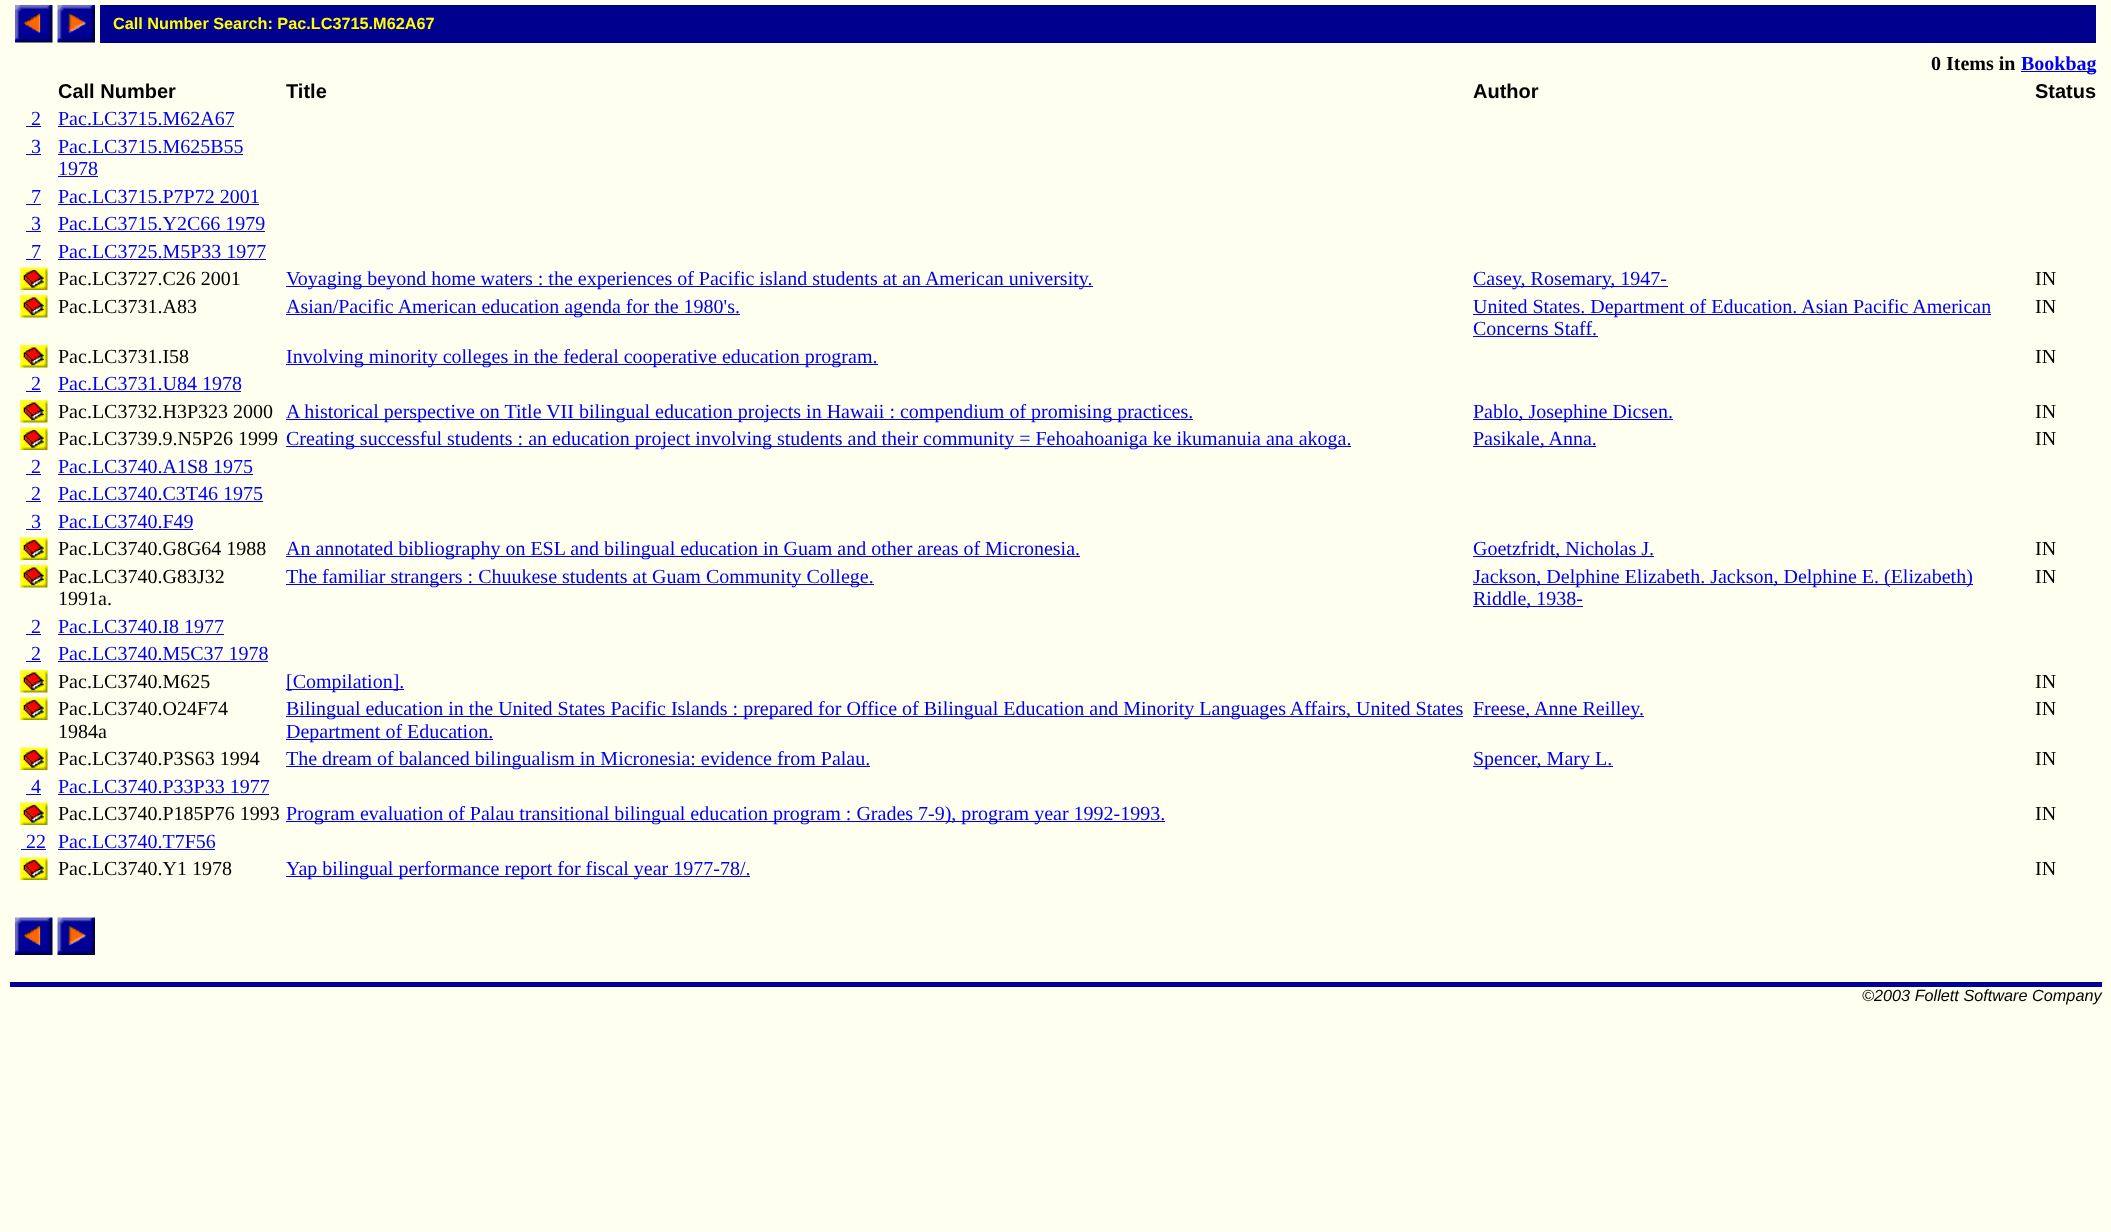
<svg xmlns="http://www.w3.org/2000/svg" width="2111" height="1232">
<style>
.a{font:bold 16.25px Liberation Sans;fill:#ff0}
.b{font:bold 20px Liberation Serif;fill:#000}
.c{font:bold 20px Liberation Serif;fill:#00e}
.d{font:bold 20px Liberation Sans;fill:#000}
.e{font:20px Liberation Serif;fill:#00e}
.f{font:20px Liberation Serif;fill:#000}
.g{font:italic 16.25px Liberation Sans;fill:#000}
</style>
<rect width="100%" height="100%" fill="#ffffef"/>
<image href="1.png" x="15" y="5" width="38" height="38"/>
<image href="2.png" x="57" y="5" width="38" height="38"/>
<path fill="#00008e" d="M100 5h1996v38H100z"/>
<path fill="#00e" d="M2021 71h75v1H2021z"/>
<path fill="#00e" d="M26 126h15v1H26z"/>
<path fill="#00e" d="M58 126h176v1H58z"/>
<path fill="#00e" d="M26 154h15v1H26z"/>
<path fill="#00e" d="M58 154h185v1H58z"/>
<path fill="#00e" d="M58 176h40v1H58z"/>
<path fill="#00e" d="M26 204h15v1H26z"/>
<path fill="#00e" d="M58 204h201v1H58z"/>
<path fill="#00e" d="M26 231h15v1H26z"/>
<path fill="#00e" d="M58 231h207v1H58z"/>
<path fill="#00e" d="M26 259h15v1H26z"/>
<path fill="#00e" d="M58 259h208v1H58z"/>
<image href="3.png" x="20" y="267" width="28" height="23"/>
<path fill="#00e" d="M286 286h807v1H286z"/>
<path fill="#00e" d="M1473 286h195v1H1473z"/>
<image href="4.png" x="20" y="295" width="28" height="23"/>
<path fill="#00e" d="M286 314h454v1H286z"/>
<path fill="#00e" d="M1473 314h518v1H1473z"/>
<path fill="#00e" d="M1473 336h125v1H1473z"/>
<image href="4.png" x="20" y="345" width="28" height="23"/>
<path fill="#00e" d="M286 364h592v1H286z"/>
<path fill="#00e" d="M26 391h15v1H26z"/>
<path fill="#00e" d="M58 391h183v1H58z"/>
<image href="4.png" x="20" y="400" width="28" height="23"/>
<path fill="#00e" d="M286 419h907v1H286z"/>
<path fill="#00e" d="M1473 419h200v1H1473z"/>
<image href="3.png" x="20" y="427" width="28" height="23"/>
<path fill="#00e" d="M286 446h1065v1H286z"/>
<path fill="#00e" d="M1473 446h123v1H1473z"/>
<path fill="#00e" d="M26 474h15v1H26z"/>
<path fill="#00e" d="M58 474h195v1H58z"/>
<path fill="#00e" d="M26 501h15v1H26z"/>
<path fill="#00e" d="M58 501h205v1H58z"/>
<path fill="#00e" d="M26 529h15v1H26z"/>
<path fill="#00e" d="M58 529h135v1H58z"/>
<image href="3.png" x="20" y="537" width="28" height="23"/>
<path fill="#00e" d="M286 556h794v1H286z"/>
<path fill="#00e" d="M1473 556h181v1H1473z"/>
<image href="4.png" x="20" y="565" width="28" height="23"/>
<path fill="#00e" d="M286 584h588v1H286z"/>
<path fill="#00e" d="M1473 584h500v1H1473z"/>
<path fill="#00e" d="M1473 606h110v1H1473z"/>
<path fill="#00e" d="M26 634h15v1H26z"/>
<path fill="#00e" d="M58 634h166v1H58z"/>
<path fill="#00e" d="M26 661h15v1H26z"/>
<path fill="#00e" d="M58 661h210v1H58z"/>
<image href="4.png" x="20" y="670" width="28" height="23"/>
<path fill="#00e" d="M286 689h118v1H286z"/>
<image href="3.png" x="20" y="697" width="28" height="23"/>
<path fill="#00e" d="M286 716h1177v1H286z"/>
<path fill="#00e" d="M286 739h207v1H286z"/>
<path fill="#00e" d="M1473 716h171v1H1473z"/>
<image href="3.png" x="20" y="747" width="28" height="23"/>
<path fill="#00e" d="M286 766h584v1H286z"/>
<path fill="#00e" d="M1473 766h140v1H1473z"/>
<path fill="#00e" d="M26 794h15v1H26z"/>
<path fill="#00e" d="M58 794h211v1H58z"/>
<image href="3.png" x="20" y="802" width="28" height="23"/>
<path fill="#00e" d="M286 821h879v1H286z"/>
<path fill="#00e" d="M21 849h25v1H21z"/>
<path fill="#00e" d="M58 849h157v1H58z"/>
<image href="3.png" x="20" y="857" width="28" height="23"/>
<path fill="#00e" d="M286 876h464v1H286z"/>
<image href="5.png" x="15" y="917" width="38" height="38"/>
<image href="6.png" x="57" y="917" width="38" height="38"/>
<path fill="#009" d="M10 982h2092v5H10z"/>
<text class="a" x="113" y="29">Call Number Search: Pac.LC3715.M62A67</text>
<text class="b" x="1931" y="70">0 Items in</text>
<text class="c" x="2021" y="70">Bookbag</text>
<text class="d" x="58" y="98">Call Number</text>
<text class="d" x="286" y="98">Title</text>
<text class="d" x="1473" y="98">Author</text>
<text class="d" x="2035" y="98">Status</text>
<text class="e" x="31" y="125">2</text>
<text class="e" x="58" y="125">Pac.LC3715.M62A67</text>
<text class="e" x="31" y="153">3</text>
<text class="e" x="58" y="153">Pac.LC3715.M625B55</text>
<text class="e" x="58" y="175">1978</text>
<text class="e" x="31" y="203">7</text>
<text class="e" x="58" y="203">Pac.LC3715.P7P72 2001</text>
<text class="e" x="31" y="230">3</text>
<text class="e" x="58" y="230">Pac.LC3715.Y2C66 1979</text>
<text class="e" x="31" y="258">7</text>
<text class="e" x="58" y="258">Pac.LC3725.M5P33 1977</text>
<text class="f" x="58" y="285">Pac.LC3727.C26 2001</text>
<text class="e" x="286" y="285">Voyaging beyond home waters : the experiences of Pacific island students at an American university.</text>
<text class="e" x="1473" y="285">Casey, Rosemary, 1947-</text>
<text class="f" x="2035" y="285">IN</text>
<text class="f" x="58" y="313">Pac.LC3731.A83</text>
<text class="e" x="286" y="313">Asian/Pacific American education agenda for the 1980's.</text>
<text class="e" x="1473" y="313">United States. Department of Education. Asian Pacific American</text>
<text class="e" x="1473" y="335">Concerns Staff.</text>
<text class="f" x="2035" y="313">IN</text>
<text class="f" x="58" y="363">Pac.LC3731.I58</text>
<text class="e" x="286" y="363">Involving minority colleges in the federal cooperative education program.</text>
<text class="f" x="2035" y="363">IN</text>
<text class="e" x="31" y="390">2</text>
<text class="e" x="58" y="390">Pac.LC3731.U84 1978</text>
<text class="f" x="58" y="418">Pac.LC3732.H3P323 2000</text>
<text class="e" x="286" y="418">A historical perspective on Title VII bilingual education projects in Hawaii : compendium of promising practices.</text>
<text class="e" x="1473" y="418">Pablo, Josephine Dicsen.</text>
<text class="f" x="2035" y="418">IN</text>
<text class="f" x="58" y="445">Pac.LC3739.9.N5P26 1999</text>
<text class="e" x="286" y="445">Creating successful students : an education project involving students and their community = Fehoahoaniga ke ikumanuia ana akoga.</text>
<text class="e" x="1473" y="445">Pasikale, Anna.</text>
<text class="f" x="2035" y="445">IN</text>
<text class="e" x="31" y="473">2</text>
<text class="e" x="58" y="473">Pac.LC3740.A1S8 1975</text>
<text class="e" x="31" y="500">2</text>
<text class="e" x="58" y="500">Pac.LC3740.C3T46 1975</text>
<text class="e" x="31" y="528">3</text>
<text class="e" x="58" y="528">Pac.LC3740.F49</text>
<text class="f" x="58" y="555">Pac.LC3740.G8G64 1988</text>
<text class="e" x="286" y="555">An annotated bibliography on ESL and bilingual education in Guam and other areas of Micronesia.</text>
<text class="e" x="1473" y="555">Goetzfridt, Nicholas J.</text>
<text class="f" x="2035" y="555">IN</text>
<text class="f" x="58" y="583">Pac.LC3740.G83J32</text>
<text class="f" x="58" y="605">1991a.</text>
<text class="e" x="286" y="583">The familiar strangers : Chuukese students at Guam Community College.</text>
<text class="e" x="1473" y="583">Jackson, Delphine Elizabeth. Jackson, Delphine E. (Elizabeth)</text>
<text class="e" x="1473" y="605">Riddle, 1938-</text>
<text class="f" x="2035" y="583">IN</text>
<text class="e" x="31" y="633">2</text>
<text class="e" x="58" y="633">Pac.LC3740.I8 1977</text>
<text class="e" x="31" y="660">2</text>
<text class="e" x="58" y="660">Pac.LC3740.M5C37 1978</text>
<text class="f" x="58" y="688">Pac.LC3740.M625</text>
<text class="e" x="286" y="688">[Compilation].</text>
<text class="f" x="2035" y="688">IN</text>
<text class="f" x="58" y="715">Pac.LC3740.O24F74</text>
<text class="f" x="58" y="738">1984a</text>
<text class="e" x="286" y="715">Bilingual education in the United States Pacific Islands : prepared for Office of Bilingual Education and Minority Languages Affairs, United States</text>
<text class="e" x="286" y="738">Department of Education.</text>
<text class="e" x="1473" y="715">Freese, Anne Reilley.</text>
<text class="f" x="2035" y="715">IN</text>
<text class="f" x="58" y="765">Pac.LC3740.P3S63 1994</text>
<text class="e" x="286" y="765">The dream of balanced bilingualism in Micronesia: evidence from Palau.</text>
<text class="e" x="1473" y="765">Spencer, Mary L.</text>
<text class="f" x="2035" y="765">IN</text>
<text class="e" x="31" y="793">4</text>
<text class="e" x="58" y="793">Pac.LC3740.P33P33 1977</text>
<text class="f" x="58" y="820">Pac.LC3740.P185P76 1993</text>
<text class="e" x="286" y="820">Program evaluation of Palau transitional bilingual education program : Grades 7-9), program year 1992-1993.</text>
<text class="f" x="2035" y="820">IN</text>
<text class="e" x="26" y="848">22</text>
<text class="e" x="58" y="848">Pac.LC3740.T7F56</text>
<text class="f" x="58" y="875">Pac.LC3740.Y1 1978</text>
<text class="e" x="286" y="875">Yap bilingual performance report for fiscal year 1977-78/.</text>
<text class="f" x="2035" y="875">IN</text>
<text class="g" x="1862" y="1001">©2003 Follett Software Company</text>
</svg>
